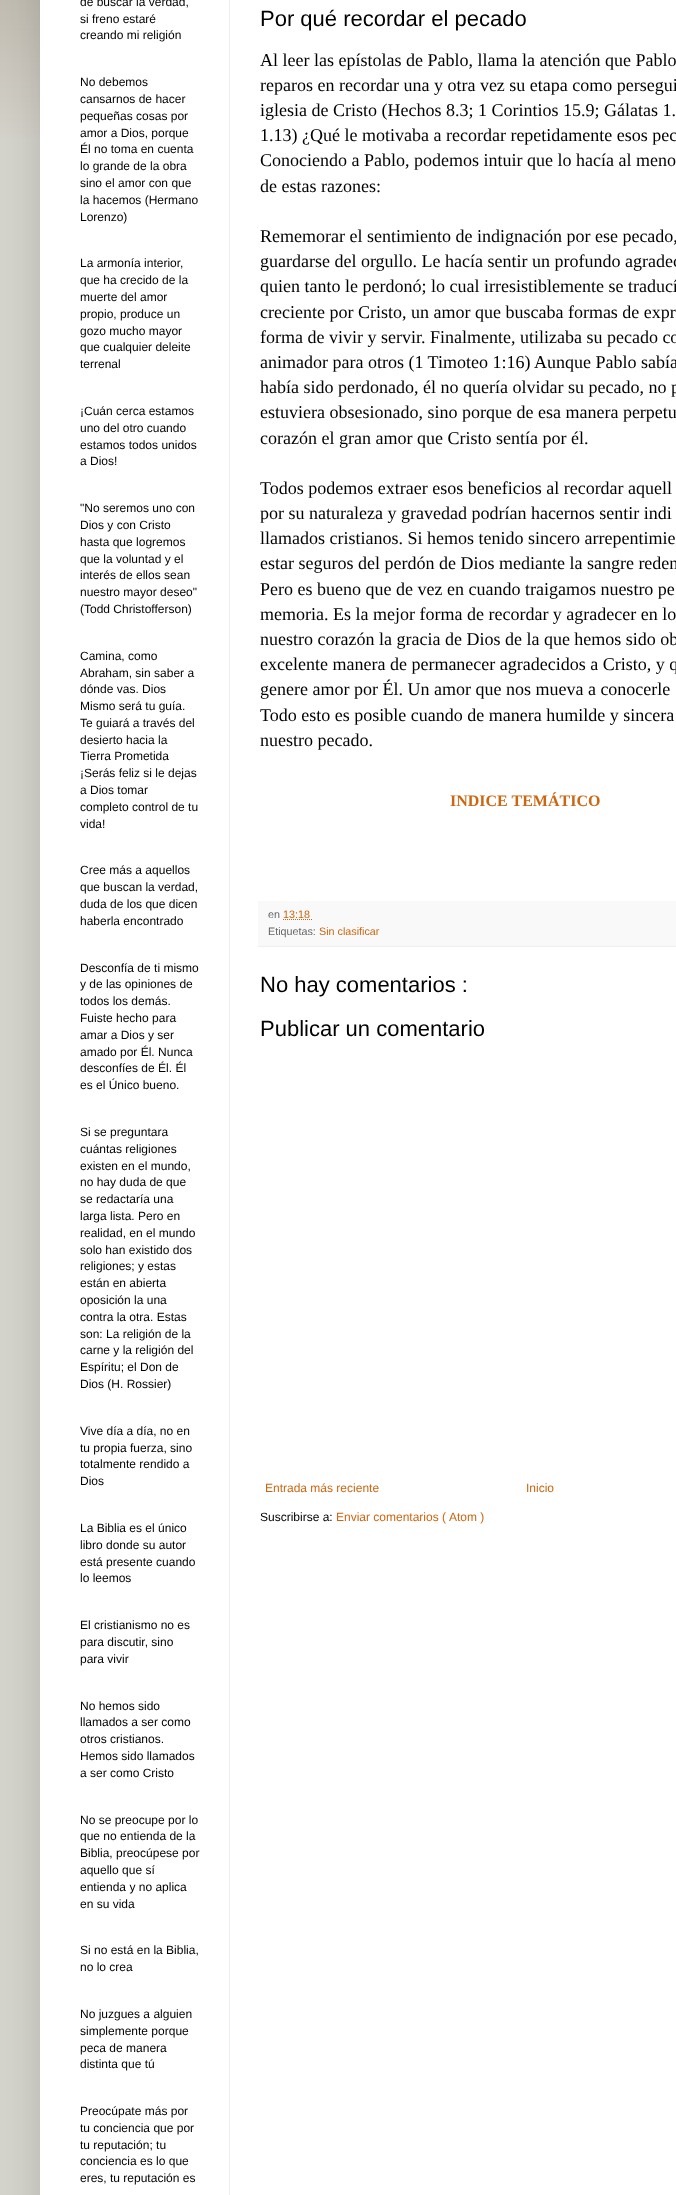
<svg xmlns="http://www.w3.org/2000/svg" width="676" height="2195">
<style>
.a{font:12px Liberation Sans;fill:#000}
.b{font:22px Liberation Sans;fill:#000}
.c{font:18px Liberation Serif;fill:#000}
.d{font:bold 16px Liberation Serif;fill:#c61}
.e{font:10.75px Liberation Sans;fill:#666}
.f{font:10.75px Liberation Sans;fill:#c61}
.g{font:12px Liberation Sans;fill:#c61}
</style>
<rect width="100%" height="100%" fill="#d4d3cc"/>
<path fill="#968f7d" d="M0 0h40v138H0z"/>
<image href="1.png" x="0" y="0" width="40" height="138"/>
<path fill="#00000026" filter="blur(20px)" d="M40 -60h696v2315H40z"/>
<path fill="#fff" d="M40 0h636v2195H40z"/>
<path fill="#f9f9f9" d="M258 901h418v45H258z"/>
<path fill="#eee" d="M258 946h418v1H258z"/>
<path fill="none" stroke="#c61" stroke-dasharray="1 1" d="M283 919.5h30"/>
<path fill="#eee" d="M229 0h1v2195H229z"/>
<text class="a" x="80" y="6">de buscar la verdad,</text>
<text class="a" x="80" y="23">si freno estaré</text>
<text class="a" x="80" y="39">creando mi religión</text>
<text class="a" x="80" y="86">No debemos</text>
<text class="a" x="80" y="103">cansarnos de hacer</text>
<text class="a" x="80" y="120">pequeñas cosas por</text>
<text class="a" x="80" y="137">amor a Dios, porque</text>
<text class="a" x="80" y="153">Él no toma en cuenta</text>
<text class="a" x="80" y="170">lo grande de la obra</text>
<text class="a" x="80" y="187">sino el amor con que</text>
<text class="a" x="80" y="204">la hacemos (Hermano</text>
<text class="a" x="80" y="221">Lorenzo)</text>
<text class="a" x="80" y="267">La armonía interior,</text>
<text class="a" x="80" y="284">que ha crecido de la</text>
<text class="a" x="80" y="301">muerte del amor</text>
<text class="a" x="80" y="318">propio, produce un</text>
<text class="a" x="80" y="335">gozo mucho mayor</text>
<text class="a" x="80" y="351">que cualquier deleite</text>
<text class="a" x="80" y="368">terrenal</text>
<text class="a" x="80" y="415">¡Cuán cerca estamos</text>
<text class="a" x="80" y="432">uno del otro cuando</text>
<text class="a" x="80" y="449">estamos todos unidos</text>
<text class="a" x="80" y="465">a Dios!</text>
<text class="a" x="80" y="512">"No seremos uno con</text>
<text class="a" x="80" y="529">Dios y con Cristo</text>
<text class="a" x="80" y="546">hasta que logremos</text>
<text class="a" x="80" y="563">que la voluntad y el</text>
<text class="a" x="80" y="579">interés de ellos sean</text>
<text class="a" x="80" y="596">nuestro mayor deseo"</text>
<text class="a" x="80" y="613">(Todd Christofferson)</text>
<text class="a" x="80" y="660">Camina, como</text>
<text class="a" x="80" y="677">Abraham, sin saber a</text>
<text class="a" x="80" y="693">dónde vas. Dios</text>
<text class="a" x="80" y="710">Mismo será tu guía.</text>
<text class="a" x="80" y="727">Te guiará a través del</text>
<text class="a" x="80" y="744">desierto hacia la</text>
<text class="a" x="80" y="760">Tierra Prometida</text>
<text class="a" x="80" y="777">¡Serás feliz si le dejas</text>
<text class="a" x="80" y="794">a Dios tomar</text>
<text class="a" x="80" y="811">completo control de tu</text>
<text class="a" x="80" y="828">vida!</text>
<text class="a" x="80" y="874">Cree más a aquellos</text>
<text class="a" x="80" y="891">que buscan la verdad,</text>
<text class="a" x="80" y="908">duda de los que dicen</text>
<text class="a" x="80" y="925">haberla encontrado</text>
<text class="a" x="80" y="972">Desconfía de ti mismo</text>
<text class="a" x="80" y="988">y de las opiniones de</text>
<text class="a" x="80" y="1005">todos los demás.</text>
<text class="a" x="80" y="1022">Fuiste hecho para</text>
<text class="a" x="80" y="1039">amar a Dios y ser</text>
<text class="a" x="80" y="1056">amado por Él. Nunca</text>
<text class="a" x="80" y="1072">desconfíes de Él. Él</text>
<text class="a" x="80" y="1089">es el Único bueno.</text>
<text class="a" x="80" y="1136">Si se preguntara</text>
<text class="a" x="80" y="1153">cuántas religiones</text>
<text class="a" x="80" y="1170">existen en el mundo,</text>
<text class="a" x="80" y="1186">no hay duda de que</text>
<text class="a" x="80" y="1203">se redactaría una</text>
<text class="a" x="80" y="1220">larga lista. Pero en</text>
<text class="a" x="80" y="1237">realidad, en el mundo</text>
<text class="a" x="80" y="1254">solo han existido dos</text>
<text class="a" x="80" y="1270">religiones; y estas</text>
<text class="a" x="80" y="1287">están en abierta</text>
<text class="a" x="80" y="1304">oposición la una</text>
<text class="a" x="80" y="1321">contra la otra. Estas</text>
<text class="a" x="80" y="1338">son: La religión de la</text>
<text class="a" x="80" y="1354">carne y la religión del</text>
<text class="a" x="80" y="1371">Espíritu; el Don de</text>
<text class="a" x="80" y="1388">Dios (H. Rossier)</text>
<text class="a" x="80" y="1435">Vive día a día, no en</text>
<text class="a" x="80" y="1452">tu propia fuerza, sino</text>
<text class="a" x="80" y="1468">totalmente rendido a</text>
<text class="a" x="80" y="1485">Dios</text>
<text class="a" x="80" y="1532">La Biblia es el único</text>
<text class="a" x="80" y="1549">libro donde su autor</text>
<text class="a" x="80" y="1566">está presente cuando</text>
<text class="a" x="80" y="1582">lo leemos</text>
<text class="a" x="80" y="1629">El cristianismo no es</text>
<text class="a" x="80" y="1646">para discutir, sino</text>
<text class="a" x="80" y="1663">para vivir</text>
<text class="a" x="80" y="1710">No hemos sido</text>
<text class="a" x="80" y="1726">llamados a ser como</text>
<text class="a" x="80" y="1743">otros cristianos.</text>
<text class="a" x="80" y="1760">Hemos sido llamados</text>
<text class="a" x="80" y="1777">a ser como Cristo</text>
<text class="a" x="80" y="1824">No se preocupe por lo</text>
<text class="a" x="80" y="1840">que no entienda de la</text>
<text class="a" x="80" y="1857">Biblia, preocúpese por</text>
<text class="a" x="80" y="1874">aquello que sí</text>
<text class="a" x="80" y="1891">entienda y no aplica</text>
<text class="a" x="80" y="1908">en su vida</text>
<text class="a" x="80" y="1954">Si no está en la Biblia,</text>
<text class="a" x="80" y="1971">no lo crea</text>
<text class="a" x="80" y="2018">No juzgues a alguien</text>
<text class="a" x="80" y="2035">simplemente porque</text>
<text class="a" x="80" y="2052">peca de manera</text>
<text class="a" x="80" y="2068">distinta que tú</text>
<text class="a" x="80" y="2115">Preocúpate más por</text>
<text class="a" x="80" y="2132">tu conciencia que por</text>
<text class="a" x="80" y="2149">tu reputación; tu</text>
<text class="a" x="80" y="2165">conciencia es lo que</text>
<text class="a" x="80" y="2182">eres, tu reputación es</text>
<text class="b" x="260" y="26">Por qué recordar el pecado</text>
<text class="c" x="260" y="66">Al leer las epístolas de Pablo, llama la atención que Pablo</text>
<text class="c" x="260" y="91">reparos en recordar una y otra vez su etapa como persegui</text>
<text class="c" x="260" y="116">iglesia de Cristo (Hechos 8.3; 1 Corintios 15.9; Gálatas 1.</text>
<text class="c" x="260" y="141">1.13) ¿Qué le motivaba a recordar repetidamente esos pec</text>
<text class="c" x="260" y="166">Conociendo a Pablo, podemos intuir que lo hacía al meno</text>
<text class="c" x="260" y="192">de estas razones:</text>
<text class="c" x="260" y="242">Rememorar el sentimiento de indignación por ese pecado,</text>
<text class="c" x="260" y="267">guardarse del orgullo. Le hacía sentir un profundo agradec</text>
<text class="c" x="260" y="292">quien tanto le perdonó; lo cual irresistiblemente se traducí</text>
<text class="c" x="260" y="318">creciente por Cristo, un amor que buscaba formas de expr</text>
<text class="c" x="260" y="343">forma de vivir y servir. Finalmente, utilizaba su pecado co</text>
<text class="c" x="260" y="368">animador para otros (1 Timoteo 1:16)</text>
<text class="c" x="534" y="368">Aunque Pablo sabía</text>
<text class="c" x="260" y="393">había sido perdonado, él no quería olvidar su pecado, no p</text>
<text class="c" x="260" y="418">estuviera obsesionado, sino porque de esa manera perpetu</text>
<text class="c" x="260" y="444">corazón el gran amor que Cristo sentía por él.</text>
<text class="c" x="260" y="494">Todos podemos extraer esos beneficios al recordar aquell</text>
<text class="c" x="260" y="519">por su naturaleza y gravedad podrían hacernos sentir indi</text>
<text class="c" x="260" y="544">llamados cristianos. Si hemos tenido sincero arrepentimie</text>
<text class="c" x="260" y="569">estar seguros del perdón de Dios mediante la sangre reden</text>
<text class="c" x="260" y="595">Pero es bueno que de vez en cuando traigamos nuestro pe</text>
<text class="c" x="260" y="620">memoria. Es la mejor forma de recordar y agradecer en lo</text>
<text class="c" x="260" y="645">nuestro corazón la gracia de Dios de la que hemos sido ob</text>
<text class="c" x="260" y="670">excelente manera de permanecer agradecidos a Cristo, y q</text>
<text class="c" x="260" y="695">genere amor por Él. Un amor que nos mueva a conocerle</text>
<text class="c" x="260" y="721">Todo esto es posible cuando de manera humilde y sincera</text>
<text class="c" x="260" y="746">nuestro pecado.</text>
<text class="d" x="450" y="806">INDICE TEMÁTICO</text>
<text class="e" x="268" y="918">en</text>
<text class="f" x="283" y="918">13:18</text>
<text class="e" x="268" y="935">Etiquetas:</text>
<text class="f" x="319" y="935">Sin clasificar</text>
<text class="b" x="260" y="992">No hay comentarios :</text>
<text class="b" x="260" y="1036">Publicar un comentario</text>
<text class="g" x="265" y="1492">Entrada más reciente</text>
<text class="g" x="526" y="1492">Inicio</text>
<text class="a" x="260" y="1521">Suscribirse a:</text>
<text class="g" x="336" y="1521">Enviar comentarios (</text>
<text class="g" x="449" y="1521">Atom )</text>
</svg>
